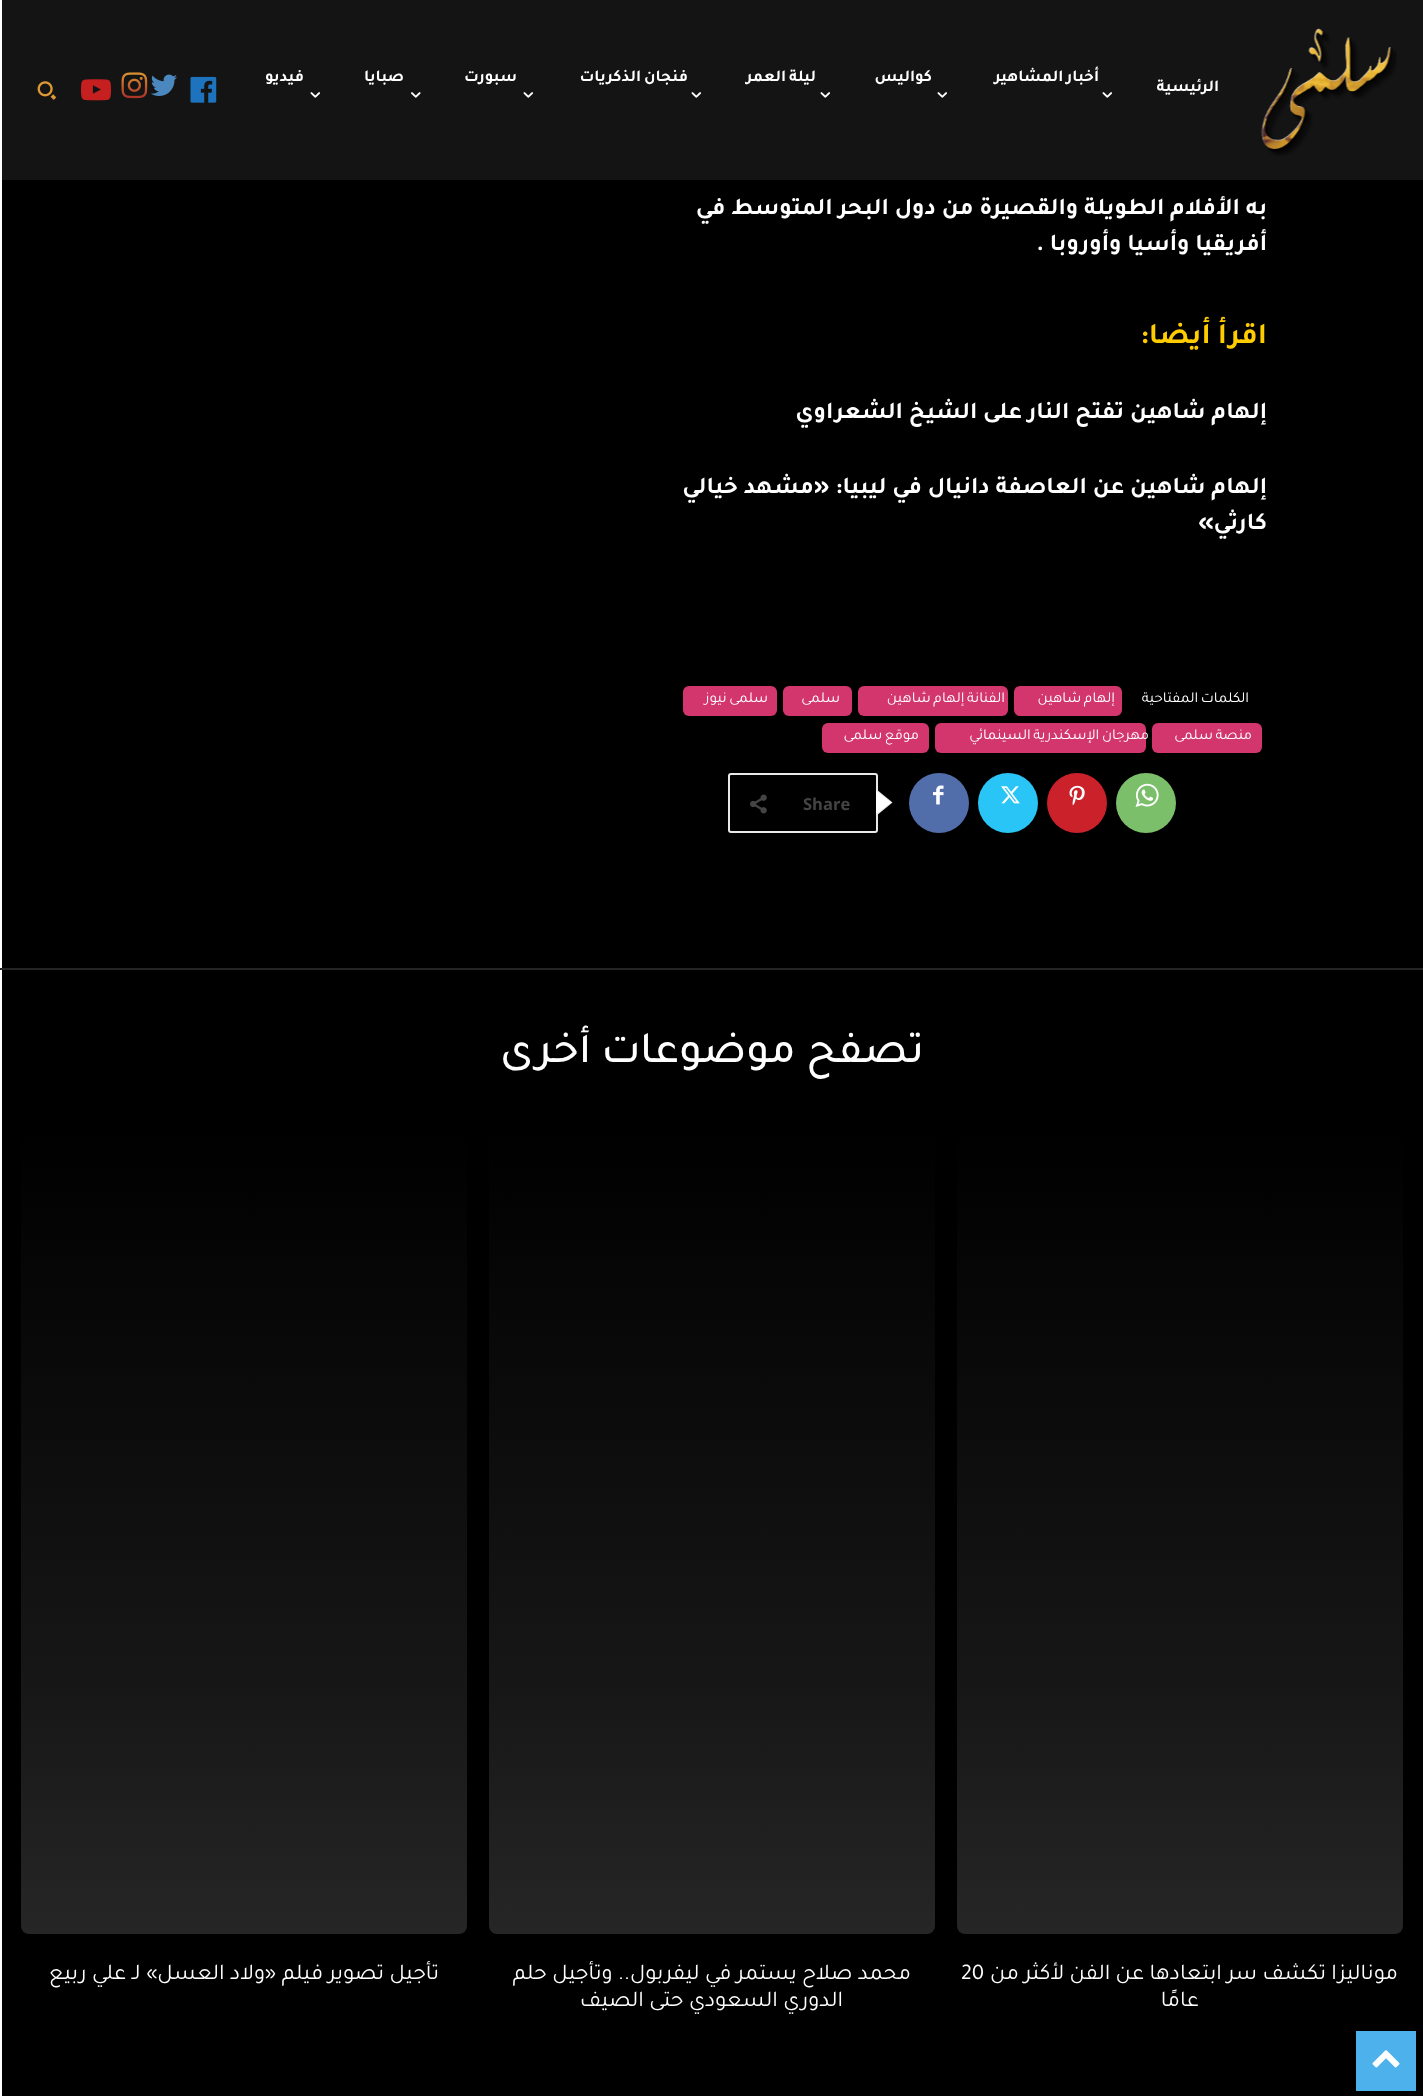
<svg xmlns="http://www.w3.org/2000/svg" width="1423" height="2096">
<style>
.a{font:bold 16.5px Tajawal;letter-spacing:0.25px;direction:rtl;fill:#fff}
.b{font:bold 24px Tajawal;direction:rtl;fill:#fff}
.c{font:bold 30px Tajawal;direction:rtl;fill:#fc0}
.d{font:15px Tajawal;letter-spacing:0.75px;direction:rtl;fill:#fff}
.e{font:bold 16.5px Open Sans;fill:#444}
.f{font:500 45px Tajawal;direction:rtl;fill:#fff}
.g{font:22.5px Tajawal;direction:rtl;fill:#fff}
.h{font:22.5px Tajawal;fill:#fff}
</style>
<defs>
<linearGradient id="g1" gradientUnits="userSpaceOnUse" x1="1180" y1="1934" x2="1180" y2="1131"><stop offset="0" stop-color="#262626"/><stop offset="0.3" stop-color="#171717"/><stop offset="1" stop-color="#000"/></linearGradient>
<linearGradient id="g2" gradientUnits="userSpaceOnUse" x1="712" y1="1934" x2="712" y2="1131"><stop offset="0" stop-color="#262626"/><stop offset="0.3" stop-color="#171717"/><stop offset="1" stop-color="#000"/></linearGradient>
<linearGradient id="g3" gradientUnits="userSpaceOnUse" x1="244" y1="1934" x2="244" y2="1131"><stop offset="0" stop-color="#262626"/><stop offset="0.3" stop-color="#171717"/><stop offset="1" stop-color="#000"/></linearGradient>
</defs>
<rect width="100%" height="100%" fill="#fff"/>
<path fill="#141414" d="M2 0h1421v180H2z"/>
<image href="1.png" x="1261" y="28" width="136" height="128"/>
<image href="2.png" x="1102" y="92" width="10" height="6"/>
<image href="2.png" x="937" y="92" width="10" height="6"/>
<image href="2.png" x="820" y="92" width="10" height="6"/>
<image href="2.png" x="691" y="92" width="10" height="6"/>
<image href="2.png" x="523" y="92" width="10" height="6"/>
<image href="3.png" x="411" y="92" width="10" height="6"/>
<image href="2.png" x="310" y="92" width="10" height="6"/>
<image href="4.png" x="190" y="76" width="27" height="27"/>
<image href="5.png" x="151" y="74" width="26" height="22"/>
<image href="6.png" x="121" y="72" width="27" height="27"/>
<image href="7.png" x="81" y="79" width="30" height="22"/>
<image href="8.png" x="37" y="81" width="20" height="19"/>
<path fill="#000" d="M2 180h1421v788H2z"/>
<rect fill="#d2366d" x="1014" y="686" width="108" height="30" rx="6"/>
<rect fill="#d2366d" x="858" y="686" width="150" height="30" rx="6"/>
<rect fill="#d2366d" x="783" y="686" width="69" height="30" rx="6"/>
<rect fill="#d2366d" x="683" y="686" width="94" height="30" rx="6"/>
<rect fill="#d2366d" x="1152" y="723" width="110" height="30" rx="6"/>
<rect fill="#d2366d" x="935" y="723" width="211" height="30" rx="6"/>
<rect fill="#d2366d" x="822" y="723" width="107" height="30" rx="6"/>
<circle fill="#7bbf6a" cx="1146" cy="803" r="30"/>
<image href="9.png" x="1135" y="783" width="24" height="24"/>
<circle fill="#ca212a" cx="1077" cy="803" r="30"/>
<image href="10.png" x="1069" y="785" width="16" height="21"/>
<circle fill="#29c5f6" cx="1008" cy="803" r="30"/>
<image href="11.png" x="1001" y="786" width="19" height="18"/>
<circle fill="#516eab" cx="939" cy="803" r="30"/>
<image href="12.png" x="933" y="785" width="11" height="20"/>
<rect fill="none" stroke="#e9e9e9" stroke-width="2" x="729" y="774" width="148" height="58" rx="2"/>
<path fill="#e9e9e9" d="M876 816v-27l16.5 13.5z"/>
<path fill="#fff" d="M876 814.5v-24l15 12z"/>
<image href="13.png" x="750" y="794" width="17" height="20"/>
<path fill="#000" d="M2 970h1421v1126H2z"/>
<path fill="#242424" d="M0 968h1423v2H0z"/>
<rect fill="url(#g1)" x="957" y="1131" width="446" height="803" rx="8"/>
<rect fill="url(#g2)" x="489" y="1131" width="446" height="803" rx="8"/>
<rect fill="url(#g3)" x="21" y="1131" width="446" height="803" rx="8"/>
<path fill="#4db2ec" d="M1356 2031h60v60H1356z"/>
<image href="14.png" x="1372" y="2050" width="28" height="18"/>
<text class="a" x="1219" y="91">الرئيسية</text>
<text class="a" x="1099" y="81" word-spacing="-1">أخبار المشاهير</text>
<text class="a" x="932" y="81">كواليس</text>
<text class="a" x="816" y="81" word-spacing="-1">ليلة العمر</text>
<text class="a" x="688" y="81" word-spacing="-1">فنجان الذكريات</text>
<text class="a" x="517" y="81">سبورت</text>
<text class="a" x="404" y="81">صبايا</text>
<text class="a" x="304" y="81">فيديو</text>
<text class="b" x="1267" y="214">به الأفلام الطويلة والقصيرة من دول البحر المتوسط في</text>
<text class="b" x="1267" y="250">أفريقيا وأسيا وأوروبا .</text>
<text class="c" x="1267" y="343">اقرأ أيضا:</text>
<text class="b" x="1267" y="418">إلهام شاهين تفتح النار على الشيخ الشعراوي</text>
<text class="b" x="1267" y="493">إلهام شاهين عن العاصفة دانيال في ليبيا: «مشهد خيالي</text>
<text class="b" x="1267" y="529">كارثي»</text>
<text class="d" x="1249" y="702" word-spacing="-1">الكلمات المفتاحية</text>
<text class="d" x="1115" y="702" word-spacing="-1">إلهام شاهين</text>
<text class="d" x="1005" y="702" word-spacing="-1">الفنانة إلهام شاهين</text>
<text class="d" x="840" y="702">سلمى</text>
<text class="d" x="768" y="702" word-spacing="-1">سلمى نيوز</text>
<text class="d" x="1252" y="739" word-spacing="-1">منصة سلمى</text>
<text class="d" x="1149" y="739" word-spacing="-1">مهرجان الإسكندرية السينمائي</text>
<text class="d" x="919" y="739" word-spacing="-1">موقع سلمى</text>
<text class="e" x="803" y="810">Share</text>
<text class="f" x="924" y="1062">تصفح موضوعات أخرى</text>
<text class="g" x="1398" y="1979">موناليزا تكشف سر ابتعادها عن الفن لأكثر من</text>
<text class="h" x="961" y="1979">20</text>
<text class="g" x="1199" y="2006">عامًا</text>
<text class="g" x="911" y="1979">محمد صلاح يستمر في ليفربول.. وتأجيل حلم</text>
<text class="g" x="843" y="2006">الدوري السعودي حتى الصيف</text>
<text class="g" x="439" y="1979">تأجيل تصوير فيلم «ولاد العسل» لـ علي ربيع</text>
</svg>
